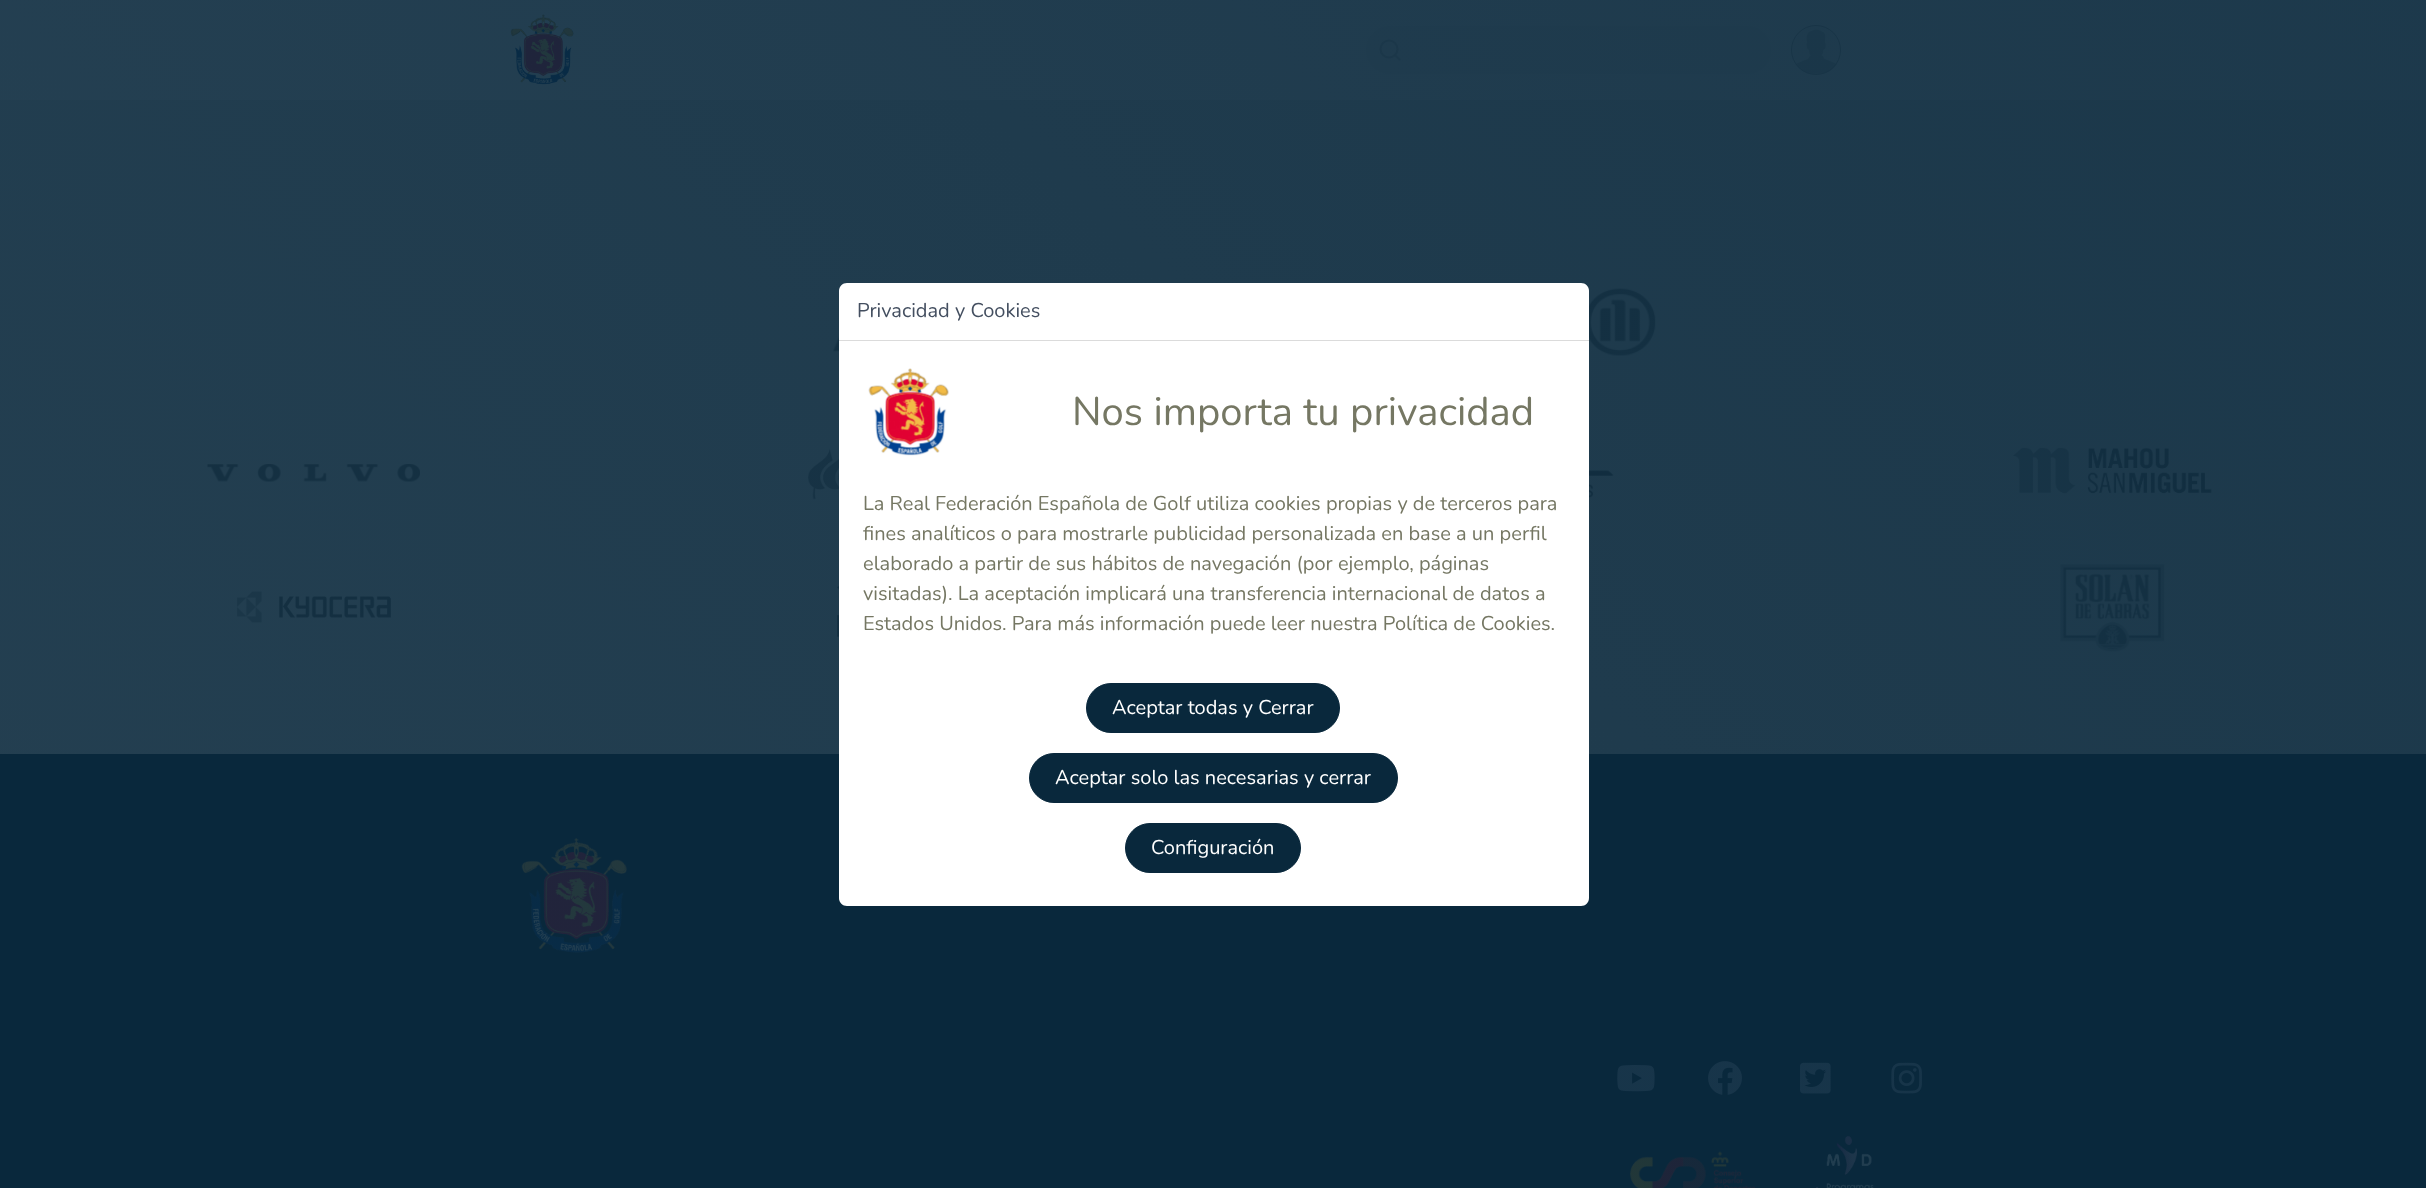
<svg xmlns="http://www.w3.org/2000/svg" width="2426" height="1188">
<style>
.a{font:20px Nunito;fill:#444f60}
.b{font:40px Nunito;fill:#757763}
.c{font:20px Nunito;fill:#757763}
.d{font:20px Nunito;fill:#fff}
</style>
<defs>
<linearGradient id="g1" gradientUnits="userSpaceOnUse" x1="-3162" y1="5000" x2="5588" y2="-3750"><stop offset="0" stop-color="#09283c" stop-opacity="0.59"/><stop offset="1" stop-color="#09283c"/></linearGradient>
</defs>
<rect width="100%" height="100%" fill="#09283c"/>
<path fill="#82919c" d="M0 0h2426v100H0z"/>
<image href="1.png" x="510" y="14" width="64" height="71"/>
<rect fill="#7e8d98" x="1366" y="26" width="405" height="48" rx="24"/>
<circle fill="none" stroke="#6a7984" stroke-width="2.1" cx="1389" cy="49" r="8.5"/>
<path fill="none" stroke="#6a7984" stroke-width="2.1" stroke-linecap="round" stroke-linejoin="round" d="M1399.5 59.5l-4.5-4.5"/>
<image href="2.png" x="1792" y="26" width="48" height="48"/>
<circle fill="none" stroke="#5d6d77" cx="1816" cy="50" r="24.5"/>
<path fill="#788892" d="M0 100h2426v654H0z"/>
<image href="3.png" x="833" y="336" width="6" height="16"/>
<image href="4.png" x="1589" y="288" width="67" height="68"/>
<image href="5.png" x="207" y="464" width="213" height="18"/>
<image href="6.png" x="808" y="448" width="31" height="52"/>
<image href="7.png" x="1589" y="470" width="25" height="28"/>
<image href="8.png" x="2013" y="447" width="199" height="47"/>
<image href="9.png" x="237" y="591" width="154" height="32"/>
<image href="10.png" x="837" y="586" width="2" height="51"/>
<image href="11.png" x="2060" y="564" width="105" height="88"/>
<image href="13.png" x="521" y="838" width="106" height="115"/>
<image href="14.png" x="1617" y="1065" width="38" height="27"/>
<image href="15.png" x="1708" y="1061" width="34" height="34"/>
<image href="16.png" x="1800" y="1062" width="31" height="32"/>
<image href="17.png" x="1891" y="1062" width="31" height="32"/>
<image href="18.png" x="1630" y="1151" width="126" height="37"/>
<image href="19.png" x="1815" y="1135" width="59" height="53"/>
<path fill="url(#g1)" d="M0 0h2426v1188H0z"/>
<path fill="#fff" d="M847 283h734c4.5 0 8 3.5 8 8v50h-750v-50c0-4.5 3.5-8 8-8z"/>
<path fill="#dbdbdb" d="M839 340h750v1H839z"/>
<path fill="#fff" d="M839 341h750v323H839z"/>
<image href="12.png" x="868" y="368" width="81" height="88"/>
<path fill="#fff" d="M839 664h750v234c0 4.5-3.5 8-8 8h-734c-4.5 0-8-3.5-8-8z"/>
<rect fill="#09283c" stroke="#09283c" x="1086.5" y="683.5" width="253" height="49" rx="24.5"/>
<rect fill="#09283c" stroke="#09283c" x="1029.5" y="753.5" width="368" height="49" rx="24.5"/>
<rect fill="#09283c" stroke="#09283c" x="1125.5" y="823.5" width="175" height="49" rx="24.5"/>
<text class="a" x="857" y="317">Privacidad y Cookies</text>
<text class="b" x="1072" y="425">Nos importa tu privacidad</text>
<text class="c" x="863" y="510">La Real Federación Española de Golf utiliza cookies propias y de terceros para</text>
<text class="c" x="863" y="540">fines analíticos o para mostrarle publicidad personalizada en base a un perfil</text>
<text class="c" x="863" y="570">elaborado a partir de sus hábitos de navegación (por ejemplo, páginas</text>
<text class="c" x="863" y="600">visitadas). La aceptación implicará una transferencia internacional de datos a</text>
<text class="c" x="863" y="630">Estados Unidos. Para más información puede leer nuestra Política de Cookies.</text>
<text class="d" x="1112" y="714">Aceptar todas y Cerrar</text>
<text class="d" x="1055" y="784">Aceptar solo las necesarias y cerrar</text>
<text class="d" x="1151" y="854">Configuración</text>
</svg>
